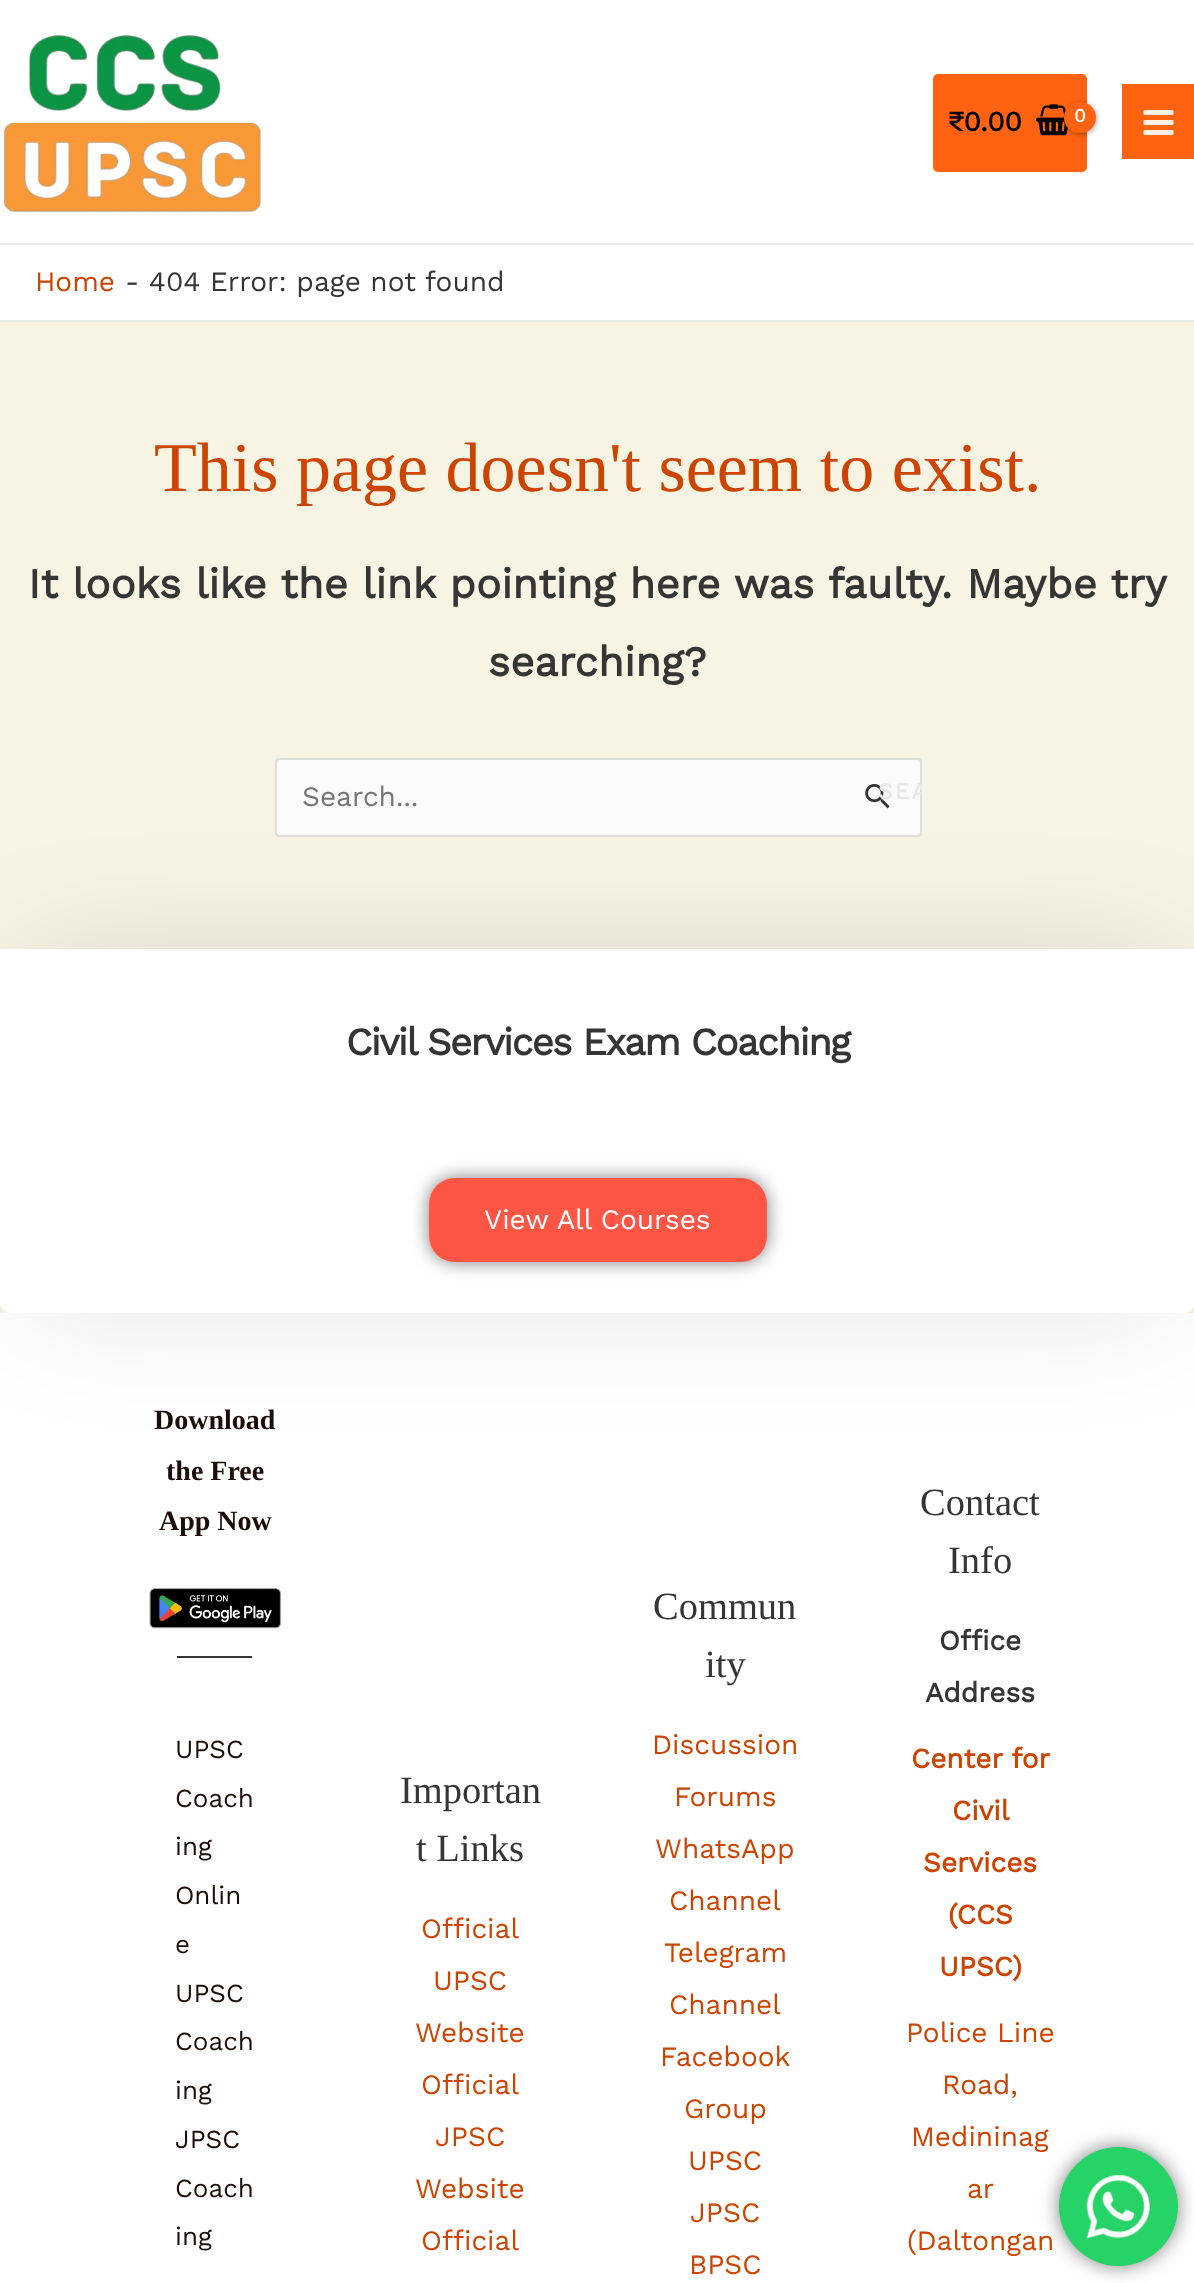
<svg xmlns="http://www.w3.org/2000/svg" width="1194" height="2283">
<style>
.a{font:bold 28px Work Sans;fill:#000}
.b{font:bold 19px Work Sans;letter-spacing:-1px;fill:#fff}
.c{font:28px Work Sans;fill:#c40}
.d{font:28px Work Sans;fill:#353535}
.e{font:70px Liberation Serif;fill:#c40}
.f{font:bold 42px Work Sans;fill:#353535}
.g{font:28px Work Sans;fill:#757575}
.h{font:bold 23px Work Sans;letter-spacing:2px;fill:#e7e7e7}
.i{font:bold 38.5px Work Sans;letter-spacing:-1.6px;fill:#353535}
.j{font:28px Work Sans;fill:#fff}
.k{font:bold 28px Liberation Serif;fill:#1c0d0a}
.l{font:26px Work Sans;fill:#1c0d0a}
.m{font:38.5px Liberation Serif;fill:#353535}
.n{font:bold 28px Work Sans;fill:#353535}
.o{font:bold 28px Work Sans;fill:#c40}
</style>
<defs>
<clipPath id="clip1"><rect x="844" y="758" width="78" height="68" rx="4"/></clipPath>
</defs>
<rect width="100%" height="100%" fill="#f8f4e3"/>
<path fill="#fff" d="M0 0h1194v243H0z"/>
<path fill="#eaeaea" d="M0 243h1194v2H0z"/>
<image href="1.png" x="3" y="34" width="258" height="178"/>
<rect fill="#ff6210" x="933" y="74" width="154" height="98" rx="5"/>
<image href="2.png" x="1036" y="104" width="32" height="32"/>
<rect fill="#0000004d" filter="blur(2.5px)" x="1066" y="103" width="31" height="32" rx="15.5"/>
<rect fill="#ff6210" x="1064" y="102" width="32" height="31" rx="15.5"/>
<path fill="#ff6210" d="M1122 84h72v75H1122z"/>
<image href="3.png" x="1143" y="110" width="31" height="25"/>
<path fill="#fff" d="M0 245h1194v75H0z"/>
<path fill="#eaeaea" d="M0 320h1194v2H0z"/>
<rect fill="#fafafa" stroke="#ddd" stroke-width="2" x="276" y="759" width="645" height="77" rx="3"/>
<image href="4.png" x="865" y="783" width="25" height="26"/>
<path fill="#fff" d="M0 1313h1194v970H0z"/>
<path fill="#00000029" filter="blur(70px)" d="M28 977h1139v308H28z"/>
<path fill="#fff" d="M0 949h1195v353c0 6-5 11-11 11h-1173c-6 0-11-5-11-11z"/>
<rect fill="#00000080" filter="blur(9px)" x="429" y="1178" width="338" height="84" rx="26"/>
<rect fill="#f54" x="429" y="1178" width="338" height="84" rx="26"/>
<image href="5.png" x="149" y="1588" width="133" height="41"/>
<path fill="#353535" d="M177 1656h75v2H177z"/>
<rect fill="#00000080" filter="blur(9.5px)" x="1059" y="2147" width="119" height="119" rx="59.5"/>
<circle fill="#25d366" cx="1118.5" cy="2206.5" r="59.5"/>
<image href="6.png" x="1086" y="2175" width="64" height="64"/>
<text class="a" x="948" y="131">₹0.00</text>
<text class="b" x="1074" y="122">0</text>
<text class="c" x="35" y="291">Home</text>
<text class="d" x="125" y="291">- 404 Error: page not found</text>
<text class="e" x="154" y="491">This page doesn't seem to exist.</text>
<text class="f" x="28" y="598">It looks like the link pointing here was faulty. Maybe try</text>
<text class="f" x="488" y="676">searching?</text>
<text class="g" x="302" y="806">Search...</text>
<g clip-path="url(#clip1)">
<text class="h" x="878" y="799">SEA</text>
</g>
<text class="i" x="346" y="1055">Civil Services Exam Coaching</text>
<text class="j" x="484" y="1229">View All Courses</text>
<text class="k" x="154" y="1429">Download</text>
<text class="k" x="166" y="1480">the Free</text>
<text class="k" x="159" y="1530">App Now</text>
<text class="l" x="175" y="1758">UPSC</text>
<text class="l" x="175" y="1807">Coach</text>
<text class="l" x="175" y="1855">ing</text>
<text class="l" x="175" y="1904">Onlin</text>
<text class="l" x="175" y="1953">e</text>
<text class="l" x="175" y="2002">UPSC</text>
<text class="l" x="175" y="2050">Coach</text>
<text class="l" x="175" y="2099">ing</text>
<text class="l" x="175" y="2148">JPSC</text>
<text class="l" x="175" y="2197">Coach</text>
<text class="l" x="175" y="2245">ing</text>
<text class="m" x="400" y="1803">Importan</text>
<text class="m" x="416" y="1861">t Links</text>
<text class="c" x="421" y="1938">Official</text>
<text class="c" x="433" y="1990">UPSC</text>
<text class="c" x="415" y="2042">Website</text>
<text class="c" x="421" y="2094">Official</text>
<text class="c" x="435" y="2146">JPSC</text>
<text class="c" x="415" y="2198">Website</text>
<text class="c" x="421" y="2250">Official</text>
<text class="m" x="653" y="1619">Commun</text>
<text class="m" x="705" y="1677">ity</text>
<text class="c" x="652" y="1754">Discussion</text>
<text class="c" x="674" y="1806">Forums</text>
<text class="c" x="655" y="1858">WhatsApp</text>
<text class="c" x="669" y="1910">Channel</text>
<text class="c" x="664" y="1962">Telegram</text>
<text class="c" x="669" y="2014">Channel</text>
<text class="c" x="660" y="2066">Facebook</text>
<text class="c" x="684" y="2118">Group</text>
<text class="c" x="688" y="2170">UPSC</text>
<text class="c" x="690" y="2222">JPSC</text>
<text class="c" x="689" y="2274">BPSC</text>
<text class="m" x="920" y="1515">Contact</text>
<text class="m" x="948" y="1573">Info</text>
<text class="n" x="939" y="1650">Office</text>
<text class="n" x="925" y="1702">Address</text>
<text class="o" x="911" y="1768">Center for</text>
<text class="o" x="952" y="1820">Civil</text>
<text class="o" x="923" y="1872">Services</text>
<text class="o" x="948" y="1924">(CCS</text>
<text class="o" x="939" y="1976">UPSC)</text>
<text class="c" x="906" y="2042">Police Line</text>
<text class="c" x="942" y="2094">Road,</text>
<text class="c" x="911" y="2146">Medininag</text>
<text class="c" x="967" y="2198">ar</text>
<text class="c" x="907" y="2250">(Daltongan</text>
</svg>
